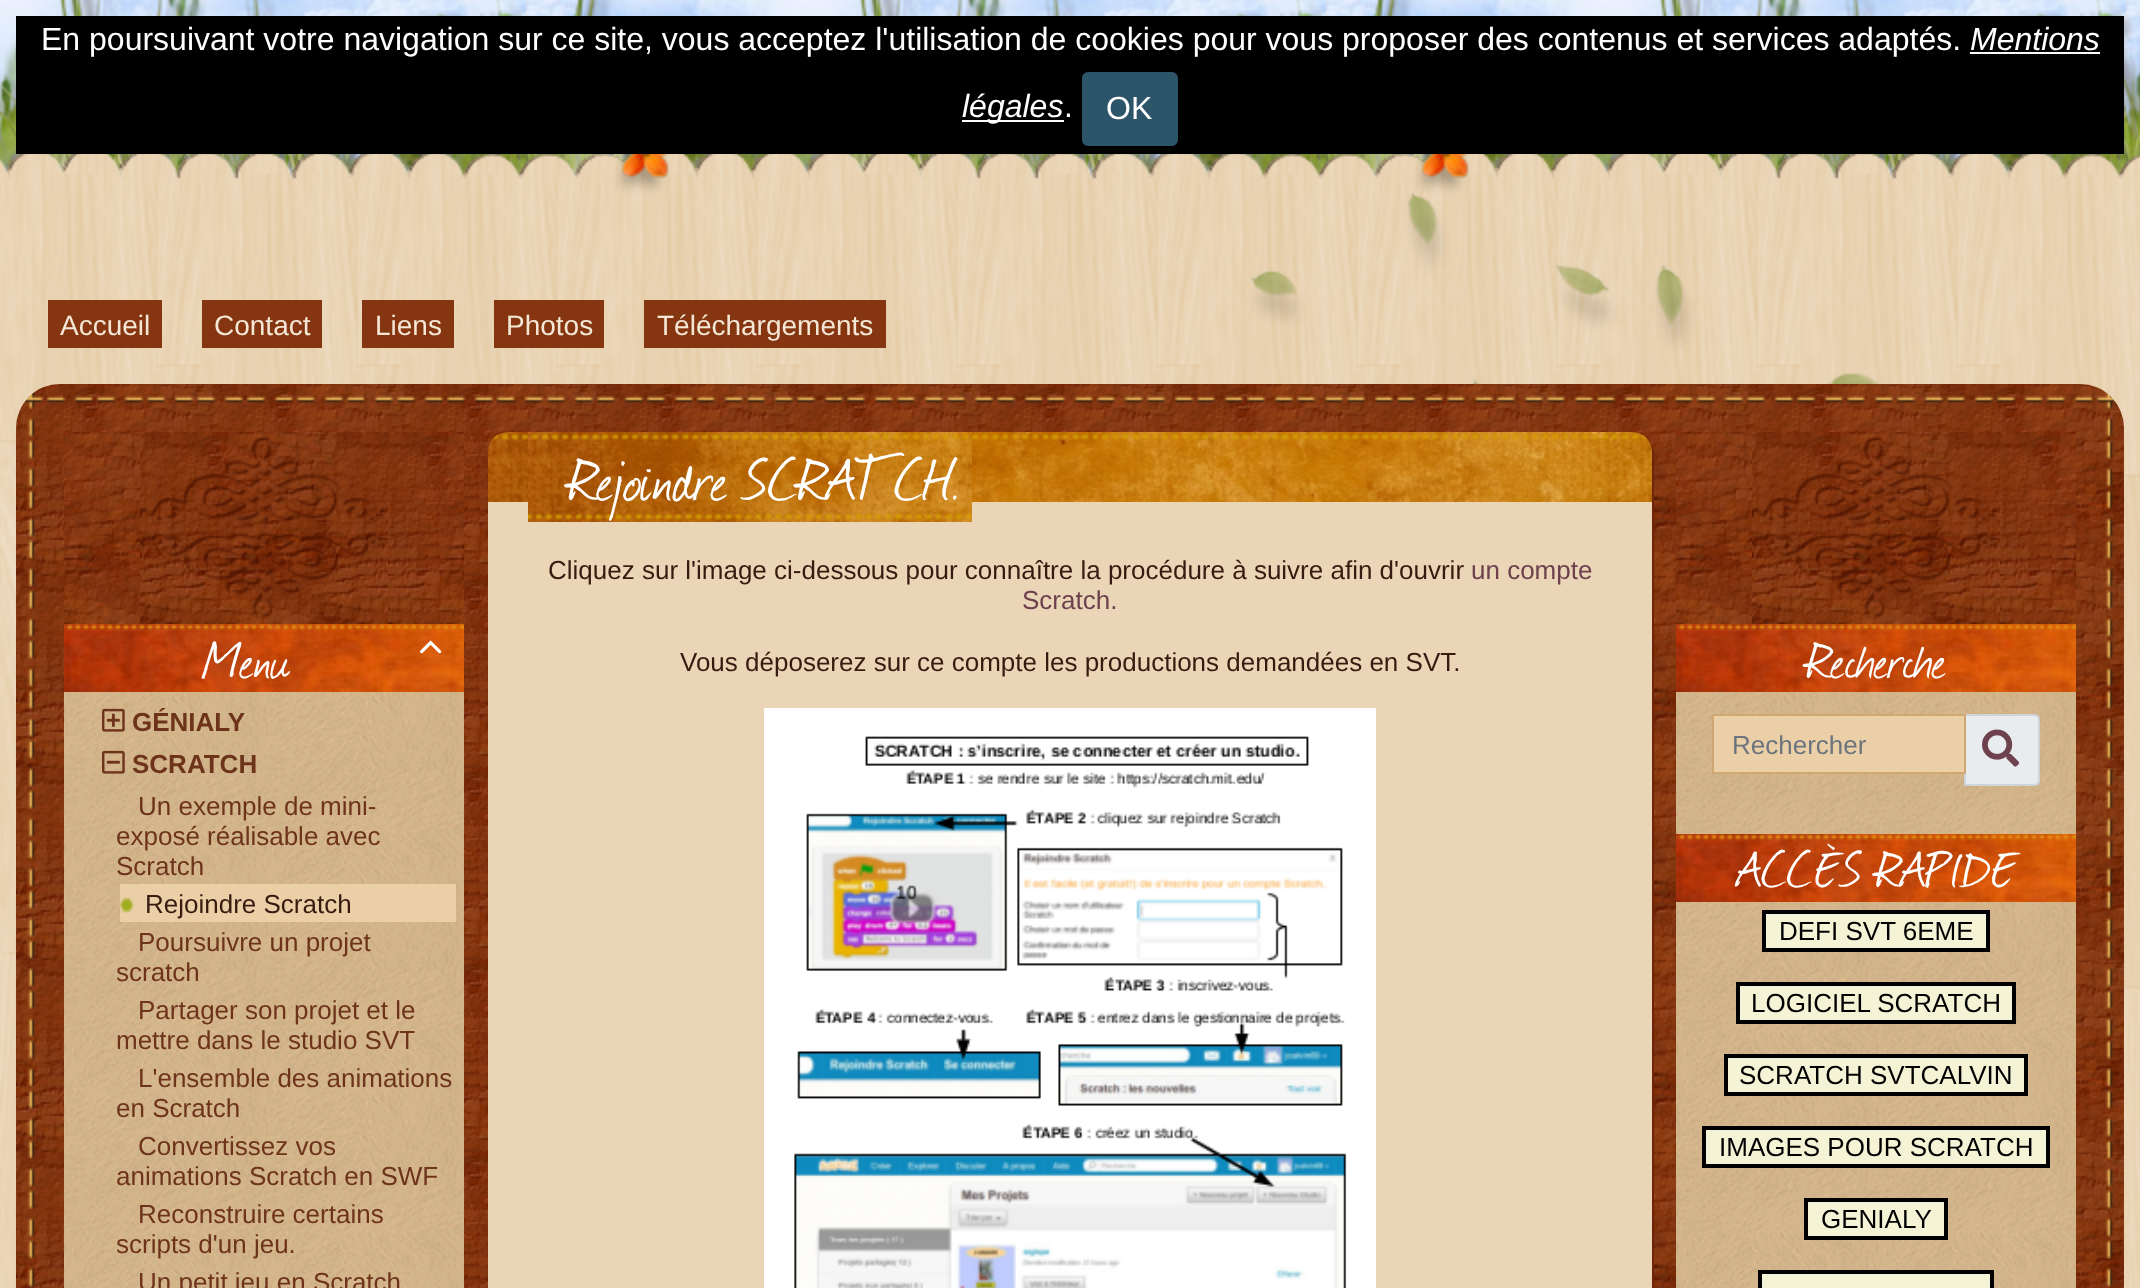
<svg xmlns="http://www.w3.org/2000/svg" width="2140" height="1288">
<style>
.a{font:32px Liberation Sans;fill:#fff}
.b{font:italic 32px Liberation Sans;fill:#fff}
.c{font:28px Liberation Sans;fill:#f4e7d6}
.d{font:70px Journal;fill:#fff}
.e{font:26px Liberation Sans;fill:#381b10}
.f{font:26px Liberation Sans;fill:#6d414e}
.g{font:60px Journal;fill:#fff}
.h{font:bold 26px Liberation Sans;fill:#6d341b}
.i{font:26px Liberation Sans;fill:#6d341b}
.j{font:26px Liberation Sans;fill:#6c757d}
.k{font:26px Liberation Sans;fill:#000}
</style>
<rect width="100%" height="100%" fill="#fff"/>
<image href="1.png" x="0" y="0" width="2140" height="1288"/>
<path fill="#000" d="M16 16h2108v138H16z"/>
<path fill="#fff" d="M1970 52h130v2H1970z"/>
<path fill="#fff" d="M962 120h102v2H962z"/>
<rect fill="#2c5569" stroke="#2c5569" stroke-width="2" x="1083" y="73" width="94" height="72" rx="5"/>
<path fill="#853611" d="M48 300h114v48H48z"/>
<path fill="#853611" d="M202 300h120v48H202z"/>
<path fill="#853611" d="M362 300h92v48H362z"/>
<path fill="#853611" d="M494 300h110v48H494z"/>
<path fill="#853611" d="M644 300h242v48H644z"/>
<image href="2.png" x="16" y="384" width="2108" height="904"/>
<path fill="#6d240b" d="M490 502v2h1164v-50c0-6-3-11-7-15c3 3 5 8 5 13v50z"/>
<image href="3.png" x="488" y="432" width="1164" height="70"/>
<path fill="#ead5b6" d="M488 502h1164v786H488z"/>
<image href="4.png" x="528" y="432" width="444" height="90"/>
<path fill="#6d240b" d="M495 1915c4 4 9 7 15 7h1124c11 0 20-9 20-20v-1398h-2v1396c0 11-9 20-20 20h-1124c-5 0-10-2-13-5z"/>
<image href="5.png" x="764" y="708" width="612" height="580"/>
<image href="6.png" x="64" y="432" width="400" height="856"/>
<image href="7.png" x="64" y="624" width="400" height="68"/>
<image href="8.png" x="420" y="640" width="22" height="14"/>
<image href="9.png" x="102" y="708" width="23" height="24"/>
<image href="10.png" x="102" y="750" width="23" height="24"/>
<path fill="#ebcfa7" d="M120 884h336v38H120z"/>
<image href="11.png" x="120" y="897" width="15" height="16"/>
<image href="12.png" x="1676" y="432" width="400" height="856"/>
<image href="7.png" x="1676" y="624" width="400" height="68"/>
<path fill="#e9ecef" stroke="#ced4da" stroke-width="2" d="M1965 715h69c3 0 5 2 5 5v60c0 3-2 5-5 5h-69z"/>
<path fill="#ebcfa7" stroke="#d0a874" stroke-width="2" d="M1713 715h252v58H1713z"/>
<image href="13.png" x="1982" y="729" width="38" height="38"/>
<image href="7.png" x="1676" y="834" width="400" height="68"/>
<path fill="#f4f3d5" stroke="#000" stroke-width="4" d="M1764 912h224v38H1764z"/>
<path fill="#f4f3d5" stroke="#000" stroke-width="4" d="M1738 984h276v38H1738z"/>
<path fill="#f4f3d5" stroke="#000" stroke-width="4" d="M1726 1056h300v38H1726z"/>
<path fill="#f4f3d5" stroke="#000" stroke-width="4" d="M1704 1128h344v38H1704z"/>
<path fill="#f4f3d5" stroke="#000" stroke-width="4" d="M1806 1200h140v38H1806z"/>
<path fill="#f4f3d5" stroke="#000" stroke-width="4" d="M1760 1272h232v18H1760z"/>
<text class="a" x="41" y="50">En poursuivant votre navigation sur ce site, vous acceptez l'utilisation de cookies pour vous proposer des contenus et services adaptés.</text>
<text class="b" x="1970" y="50">Mentions</text>
<text class="b" x="962" y="117">légales</text>
<text class="a" x="1064" y="117">.</text>
<text class="a" x="1106" y="119">OK</text>
<text class="c" x="60" y="335">Accueil</text>
<text class="c" x="214" y="335">Contact</text>
<text class="c" x="375" y="335">Liens</text>
<text class="c" x="506" y="335">Photos</text>
<text class="c" x="657" y="335">Téléchargements</text>
<text class="d" x="568" y="499">Rejoindre SCRATCH.</text>
<text class="e" x="548" y="579">Cliquez sur l'image ci-dessous pour connaître la procédure à suivre afin d'ouvrir</text>
<text class="f" x="1471" y="579">un compte</text>
<text class="f" x="1022" y="609">Scratch.</text>
<text class="e" x="680" y="671">Vous déposerez sur ce compte les productions demandées en SVT.</text>
<text class="g" x="204" y="677">Menu</text>
<text class="h" x="132" y="731">GÉNIALY</text>
<text class="h" x="132" y="773">SCRATCH</text>
<text class="i" x="138" y="815">Un exemple de mini-</text>
<text class="i" x="116" y="845">exposé réalisable avec</text>
<text class="i" x="116" y="875">Scratch</text>
<text class="e" x="145" y="913">Rejoindre Scratch</text>
<text class="i" x="138" y="951">Poursuivre un projet</text>
<text class="i" x="116" y="981">scratch</text>
<text class="i" x="138" y="1019">Partager son projet et le</text>
<text class="i" x="116" y="1049">mettre dans le studio SVT</text>
<text class="i" x="138" y="1087">L'ensemble des animations</text>
<text class="i" x="116" y="1117">en Scratch</text>
<text class="i" x="138" y="1155">Convertissez vos</text>
<text class="i" x="116" y="1185">animations Scratch en SWF</text>
<text class="i" x="138" y="1223">Reconstruire certains</text>
<text class="i" x="116" y="1253">scripts d'un jeu.</text>
<text class="i" x="138" y="1291">Un petit jeu en Scratch</text>
<text class="g" x="1806" y="677">Recherche</text>
<text class="j" x="1732" y="754">Rechercher</text>
<text class="g" x="1736" y="886">ACCÈS RAPIDE</text>
<text class="k" x="1779" y="940">DEFI SVT 6EME</text>
<text class="k" x="1751" y="1012">LOGICIEL SCRATCH</text>
<text class="k" x="1739" y="1084">SCRATCH SVTCALVIN</text>
<text class="k" x="1719" y="1156">IMAGES POUR SCRATCH</text>
<text class="k" x="1821" y="1228">GENIALY</text>
</svg>
